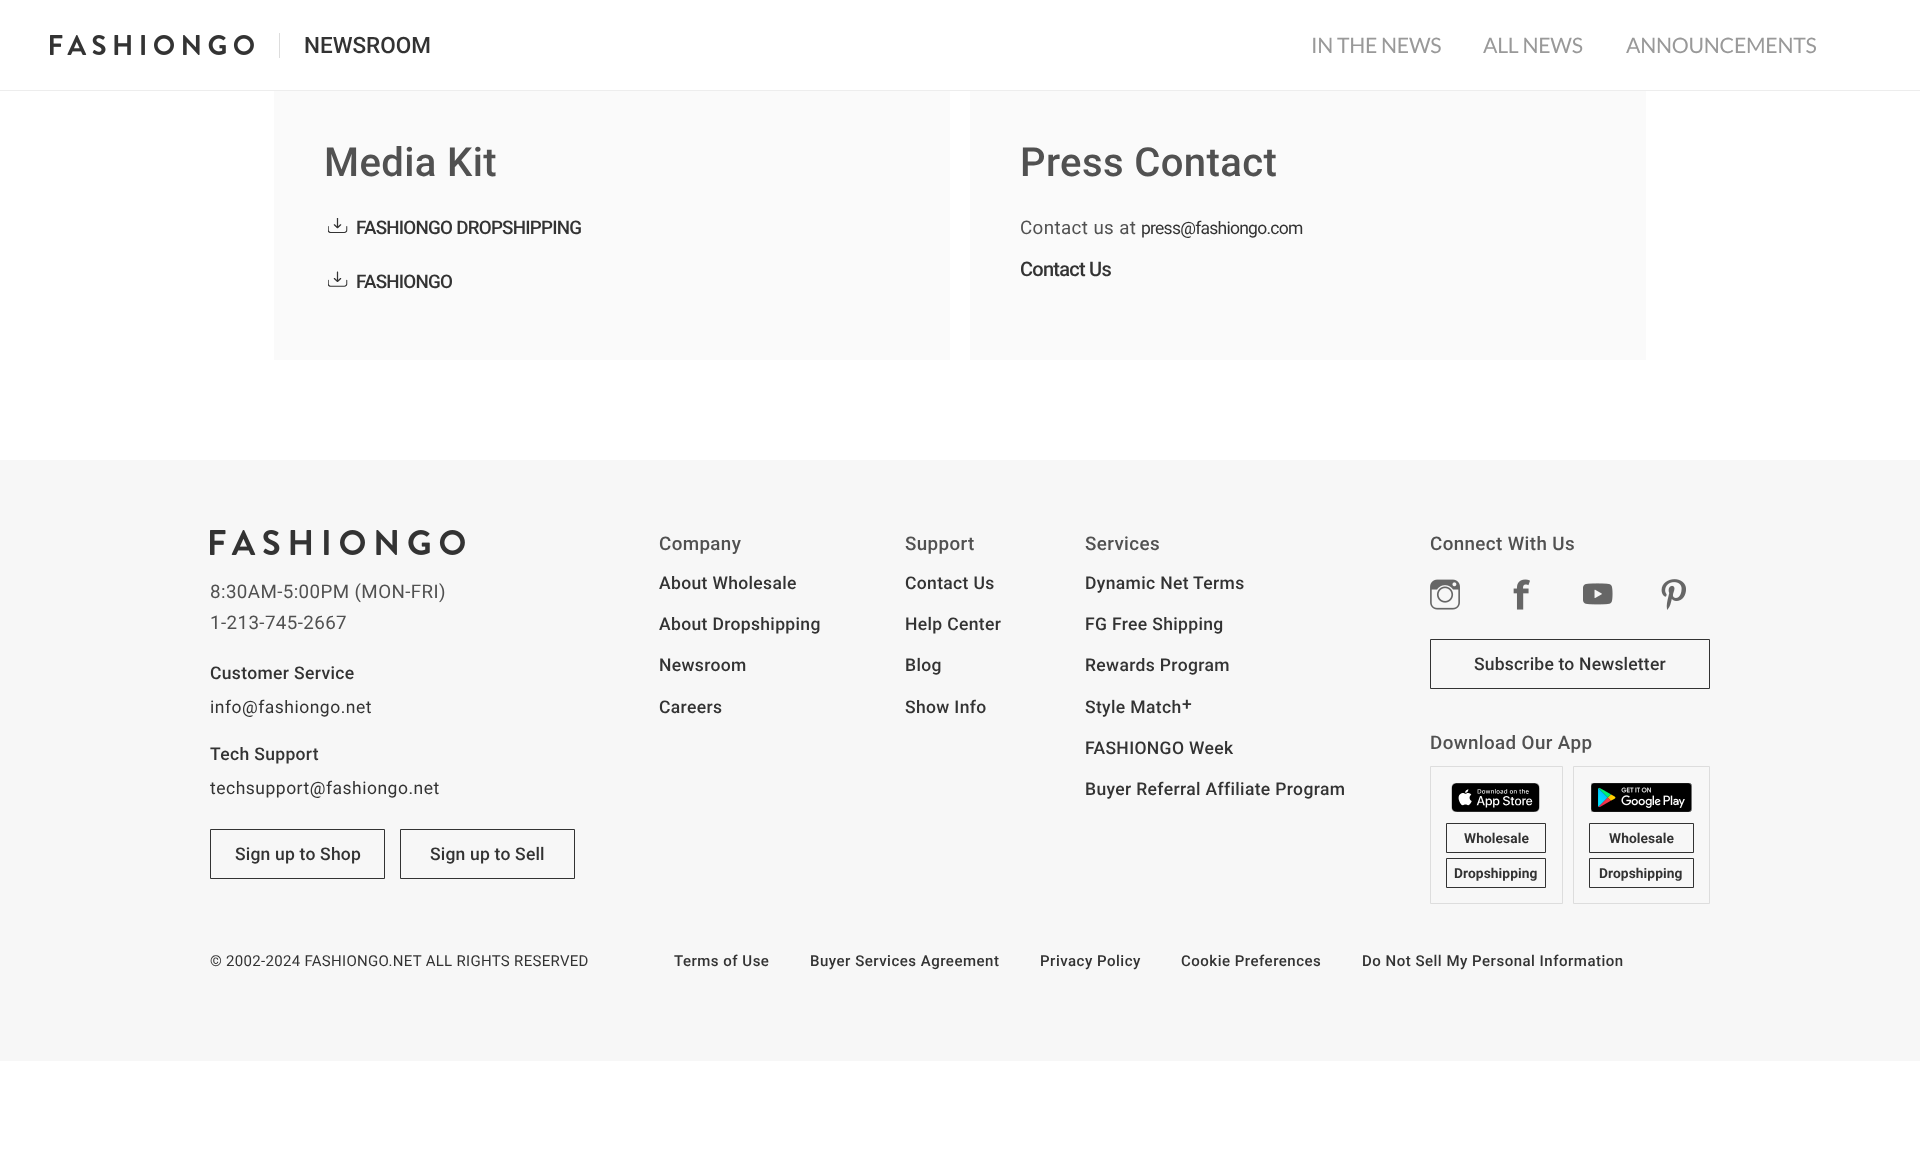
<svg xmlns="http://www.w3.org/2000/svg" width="1920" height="1152">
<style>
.a{font:500 22.5px Roboto;fill:#333}
.b{font:21.25px Lato;letter-spacing:-0.25px;fill:#999}
.c{font:500 40px Roboto;letter-spacing:0.4px;fill:#515151}
.d{font:500 18.75px Roboto;letter-spacing:-0.75px;fill:#333}
.e{font:18.75px Roboto;letter-spacing:0.4px;fill:#515151}
.f{font:17.5px Roboto;letter-spacing:-0.75px;fill:#333}
.g{font:500 20px Roboto;letter-spacing:-0.75px;fill:#333}
.h{font:500 17.5px Roboto;letter-spacing:0.35px;fill:#333}
.i{font:17.5px Roboto;letter-spacing:0.5px;fill:#333}
.j{font:500 17.5px Roboto;letter-spacing:0.2px;fill:#333}
.k{font:500 18.75px Roboto;letter-spacing:0.4px;fill:#515151}
.l{font:bold 13.75px Roboto;letter-spacing:0.1px;fill:#333}
.m{font:15px Roboto;letter-spacing:0.3px;fill:#333}
.n{font:500 15px Roboto;letter-spacing:0.5px;fill:#333}
</style>
<rect width="100%" height="100%" fill="#fff"/>
<path fill="#ededed" d="M0 90h1920v1H0z"/>
<image href="1.png" x="50" y="35" width="204" height="20"/>
<path fill="#ddd" d="M279 33h1v25H279z"/>
<path fill="#fafafa" d="M274 91h676v269H274z"/>
<image href="2.png" x="328" y="218" width="20" height="15"/>
<image href="3.png" x="328" y="271" width="20" height="16"/>
<path fill="#fafafa" d="M970 91h676v269H970z"/>
<path fill="#f7f7f7" d="M0 460h1920v601H0z"/>
<image href="4.png" x="210" y="530" width="255" height="25"/>
<path fill="none" stroke="#333" d="M210.5 829.5h174v49H210.5z"/>
<path fill="none" stroke="#333" d="M400.5 829.5h174v49H400.5z"/>
<image href="5.png" x="1430" y="579" width="30" height="31"/>
<image href="6.png" x="1513" y="579" width="17" height="31"/>
<image href="7.png" x="1583" y="583" width="30" height="22"/>
<image href="8.png" x="1661" y="579" width="25" height="31"/>
<path fill="none" stroke="#333" d="M1430.5 639.5h279v49H1430.5z"/>
<path fill="none" stroke="#ddd" d="M1430.5 766.5h132v137H1430.5z"/>
<image href="9.png" x="1451" y="783" width="89" height="29"/>
<path fill="none" stroke="#333" d="M1446.5 823.5h99v29H1446.5z"/>
<path fill="none" stroke="#333" d="M1446.5 858.5h99v29H1446.5z"/>
<path fill="none" stroke="#ddd" d="M1573.5 766.5h136v137H1573.5z"/>
<image href="10.png" x="1591" y="783" width="101" height="29"/>
<path fill="none" stroke="#333" d="M1589.5 823.5h104v29H1589.5z"/>
<path fill="none" stroke="#333" d="M1589.5 858.5h104v29H1589.5z"/>
<text class="a" x="304" y="53">NEWSROOM</text>
<text class="b" x="1311" y="53">IN THE NEWS</text>
<text class="b" x="1483" y="53">ALL NEWS</text>
<text class="b" x="1626" y="53">ANNOUNCEMENTS</text>
<text class="c" x="324" y="176">Media Kit</text>
<text class="d" x="356" y="234">FASHIONGO DROPSHIPPING</text>
<text class="d" x="356" y="288">FASHIONGO</text>
<text class="c" x="1020" y="176">Press Contact</text>
<text class="e" x="1020" y="234">Contact us at</text>
<text class="f" x="1141" y="234">press@fashiongo.com</text>
<text class="g" x="1020" y="276">Contact Us</text>
<text class="e" x="210" y="598">8:30AM-5:00PM (MON-FRI)</text>
<text class="e" x="210" y="629">1-213-745-2667</text>
<text class="h" x="210" y="679">Customer Service</text>
<text class="i" x="210" y="713">info@fashiongo.net</text>
<text class="h" x="210" y="760">Tech Support</text>
<text class="i" x="210" y="794">techsupport@fashiongo.net</text>
<text class="j" x="235" y="860">Sign up to Shop</text>
<text class="j" x="430" y="860">Sign up to Sell</text>
<text class="k" x="659" y="550">Company</text>
<text class="h" x="659" y="589">About Wholesale</text>
<text class="h" x="659" y="630">About Dropshipping</text>
<text class="h" x="659" y="671">Newsroom</text>
<text class="h" x="659" y="713">Careers</text>
<text class="k" x="905" y="550">Support</text>
<text class="h" x="905" y="589">Contact Us</text>
<text class="h" x="905" y="630">Help Center</text>
<text class="h" x="905" y="671">Blog</text>
<text class="h" x="905" y="713">Show Info</text>
<text class="k" x="1085" y="550">Services</text>
<text class="h" x="1085" y="589">Dynamic Net Terms</text>
<text class="h" x="1085" y="630">FG Free Shipping</text>
<text class="h" x="1085" y="671">Rewards Program</text>
<text class="h" x="1085" y="713">Style Match</text>
<text class="h" x="1182" y="710">+</text>
<text class="h" x="1085" y="754">FASHIONGO Week</text>
<text class="h" x="1085" y="795">Buyer Referral Affiliate Program</text>
<text class="k" x="1430" y="550">Connect With Us</text>
<text class="j" x="1474" y="670">Subscribe to Newsletter</text>
<text class="k" x="1430" y="749">Download Our App</text>
<text class="l" x="1464" y="843">Wholesale</text>
<text class="l" x="1454" y="878">Dropshipping</text>
<text class="l" x="1609" y="843">Wholesale</text>
<text class="l" x="1599" y="878">Dropshipping</text>
<text class="m" x="210" y="966">© 2002-2024 FASHIONGO.NET ALL RIGHTS RESERVED</text>
<text class="n" x="674" y="966">Terms of Use</text>
<text class="n" x="810" y="966">Buyer Services Agreement</text>
<text class="n" x="1040" y="966">Privacy Policy</text>
<text class="n" x="1181" y="966">Cookie Preferences</text>
<text class="n" x="1362" y="966">Do Not Sell My Personal Information</text>
</svg>
